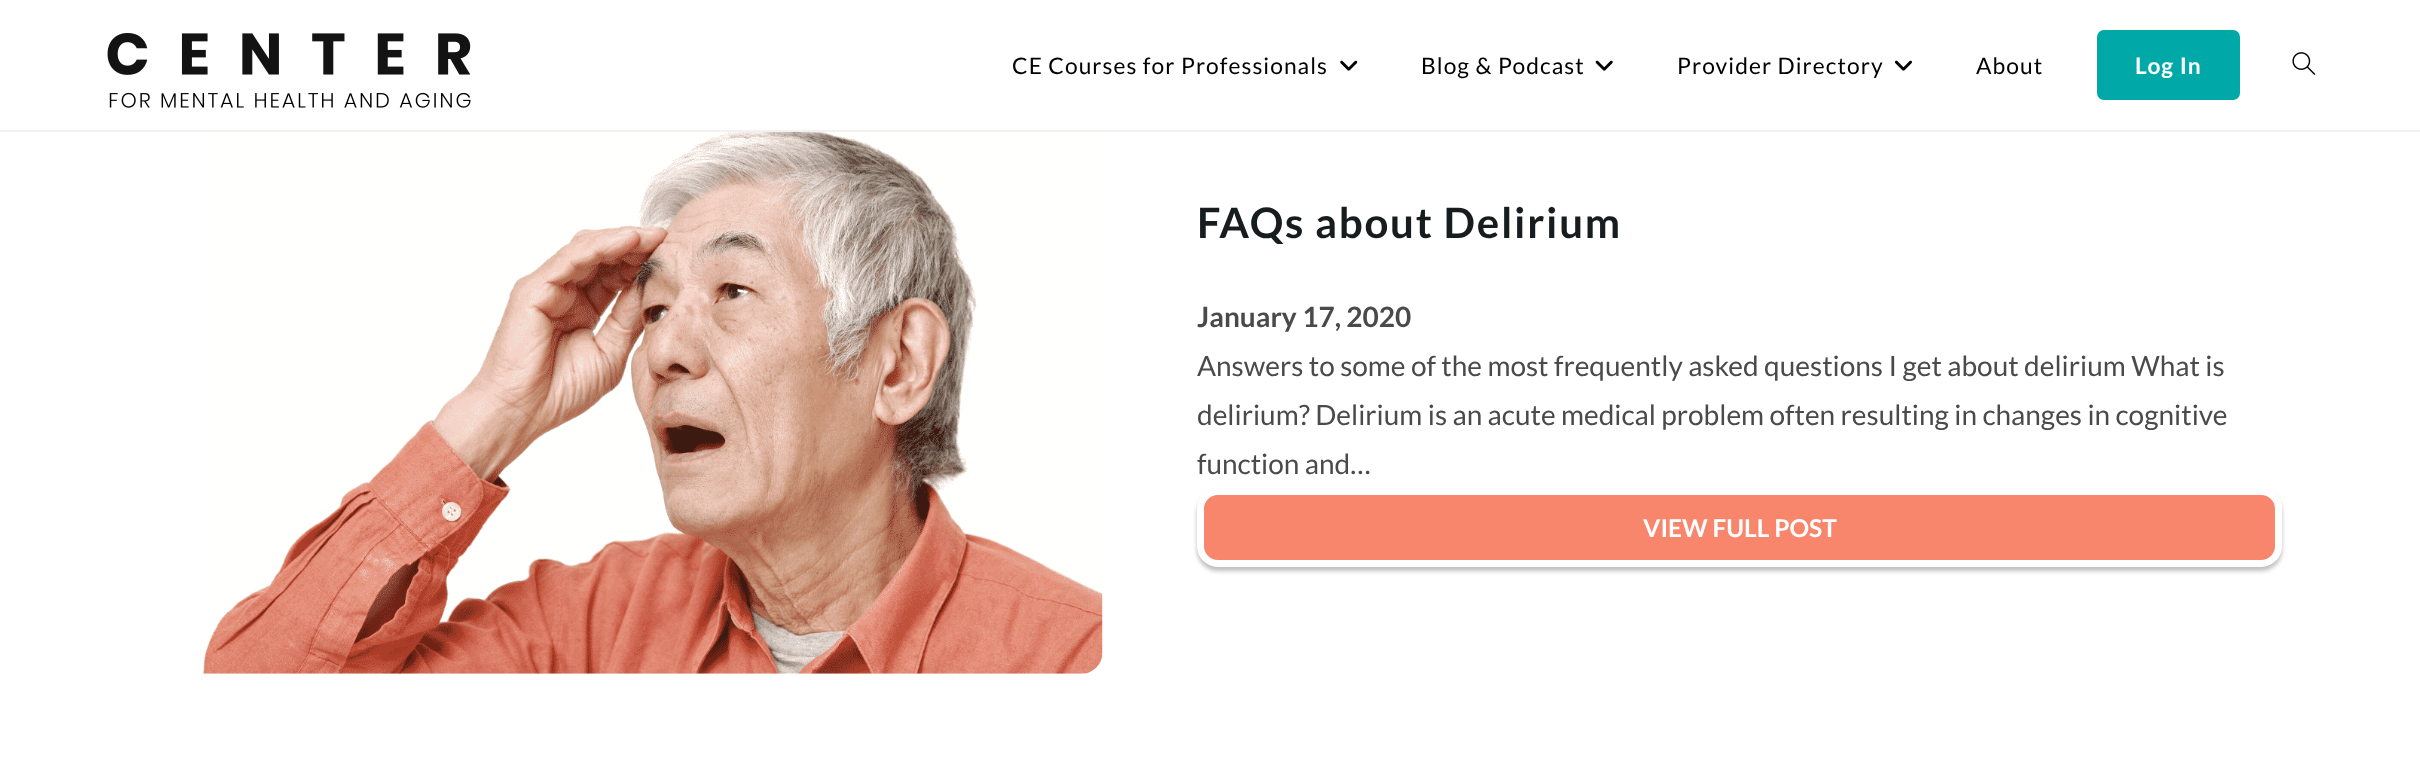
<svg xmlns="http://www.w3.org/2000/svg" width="2420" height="774">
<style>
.a{font:22.75px Lato;letter-spacing:1.05px;fill:#000}
.b{font:bold 22.75px Lato;letter-spacing:1.05px;fill:#fff}
.c{font:bold 42px Lato;letter-spacing:1.75px;fill:#171c1e}
.d{font:bold 28px Lato;fill:#4a4a4a}
.e{font:28px Lato;fill:#4a4a4a}
.f{font:bold 24.5px Lato;fill:#fff}
</style>
<rect width="100%" height="100%" fill="#fff"/>
<path fill="#f1f1f1" d="M0 130h2420v2H0z"/>
<image href="1.png" x="107" y="33" width="364" height="75"/>
<image href="2.png" x="1340" y="60" width="18" height="11"/>
<image href="3.png" x="1595" y="60" width="18" height="11"/>
<image href="4.png" x="1894" y="60" width="18" height="11"/>
<rect fill="#00a8a8" x="2097" y="30" width="143" height="70" rx="7"/>
<image href="5.png" x="2292" y="52" width="24" height="23"/>
<image href="6.png" x="203" y="132" width="900" height="542"/>
<rect fill="#00000040" filter="blur(2px)" x="1197" y="492" width="1085" height="79" rx="21"/>
<rect fill="#f8866c" stroke="#fff" stroke-width="7" x="1200.5" y="491.5" width="1078" height="72" rx="17.5"/>
<text class="a" x="1012" y="74">CE Courses for Professionals</text>
<text class="a" x="1421" y="74">Blog &amp; Podcast</text>
<text class="a" x="1677" y="74">Provider Directory</text>
<text class="a" x="1976" y="74">About</text>
<text class="b" x="2135" y="74">Log In</text>
<text class="c" x="1197" y="238">FAQs about Delirium</text>
<text class="d" x="1197" y="327">January 17, 2020</text>
<text class="e" x="1197" y="376">Answers to some of the most frequently asked questions I get about delirium What is</text>
<text class="e" x="1197" y="425">delirium? Delirium is an acute medical problem often resulting in changes in cognitive</text>
<text class="e" x="1197" y="474">function and…</text>
<text class="f" x="1643" y="537">VIEW FULL POST</text>
</svg>
